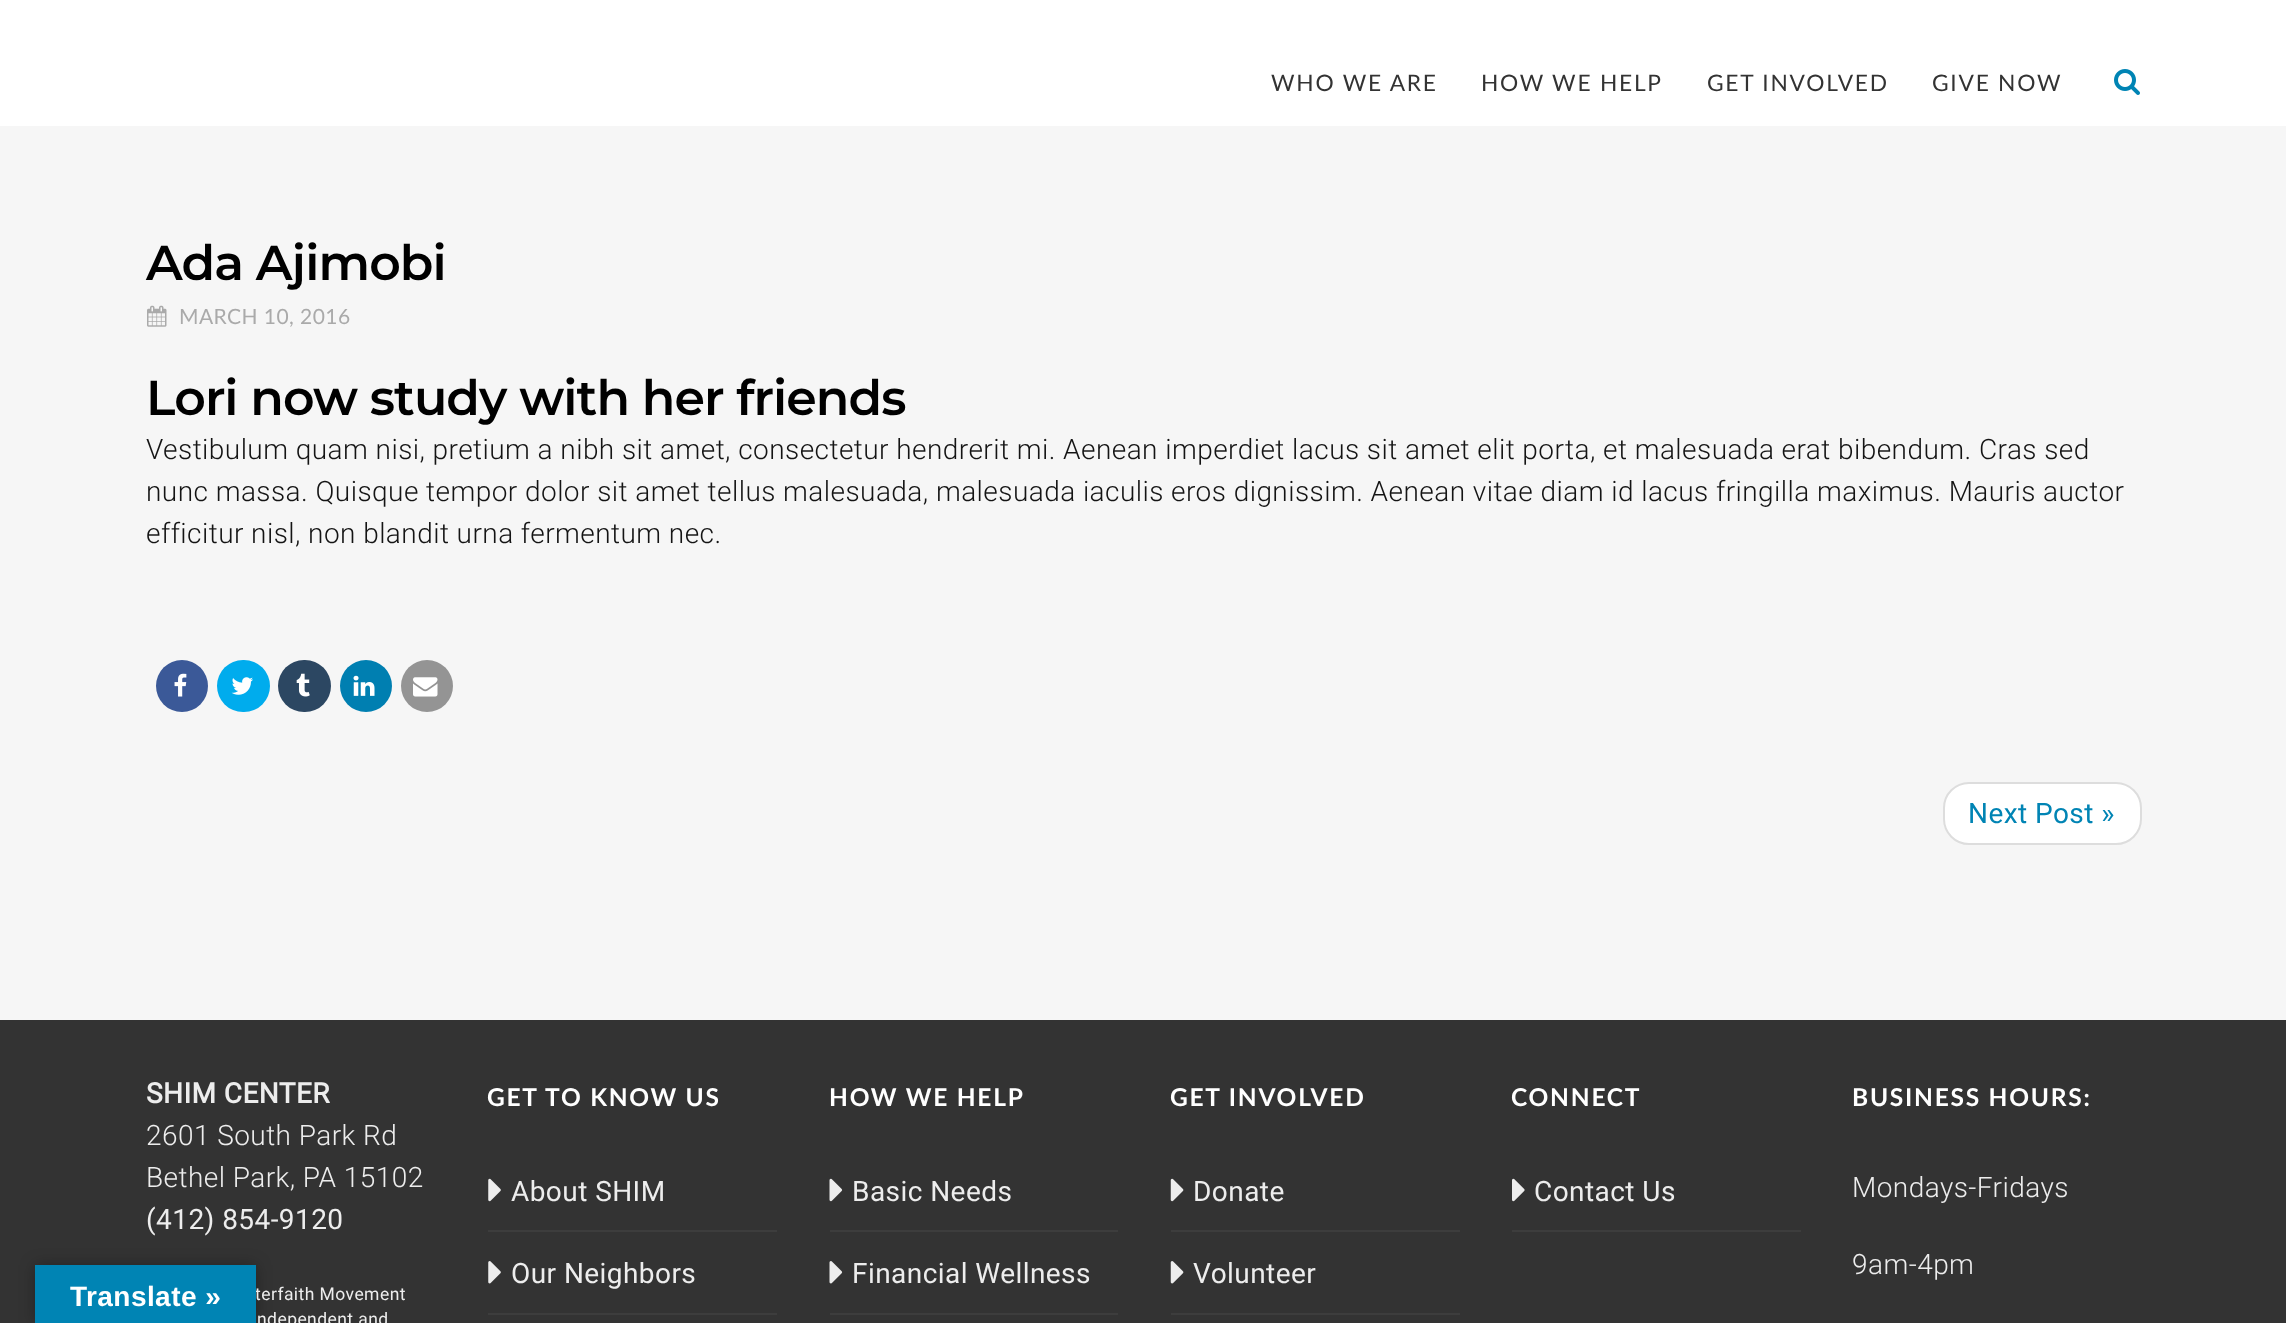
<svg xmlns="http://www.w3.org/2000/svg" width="2286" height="1323">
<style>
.a{font:22.75px Lato;letter-spacing:1.75px;fill:#333}
.b{font:600 49px Montserrat;letter-spacing:-0.9px;fill:#000}
.c{font:21px Lato;letter-spacing:0.44px;fill:#aaa}
.d{font:300 28px Roboto;letter-spacing:0.44px;fill:#141414}
.e{font:28px Roboto;letter-spacing:0.44px;fill:#0084b4}
.f{font:bold 28px Roboto;letter-spacing:0.44px;fill:#ededed}
.g{font:300 28px Roboto;letter-spacing:0.44px;fill:#ededed}
.h{font:28px Roboto;letter-spacing:0.44px;fill:#ededed}
.i{font:17.5px Roboto;letter-spacing:0.44px;fill:#ededed}
.j{font:bold 24.5px Lato;letter-spacing:1.75px;fill:#fff}
.k{font:bold 28px Liberation Sans;letter-spacing:0.44px;fill:#fff}
</style>
<rect width="100%" height="100%" fill="#fff"/>
<image href="1.png" x="2114" y="69" width="26" height="26"/>
<path fill="#f6f6f6" d="M0 126h2286v894H0z"/>
<image href="2.png" x="147" y="305" width="20" height="22"/>
<circle fill="#3b5998" cx="182" cy="686" r="26"/>
<image href="3.png" x="174" y="673" width="13" height="24"/>
<rect fill="#00aced" x="217" y="660" width="53" height="52" rx="26"/>
<image href="4.png" x="231" y="677" width="22" height="18"/>
<rect fill="#2c4762" x="278" y="660" width="53" height="52" rx="26"/>
<image href="5.png" x="296" y="673" width="14" height="24"/>
<circle fill="#007fb1" cx="366" cy="686" r="26"/>
<image href="6.png" x="353" y="675" width="22" height="21"/>
<circle fill="#949494" cx="427" cy="686" r="26"/>
<image href="7.png" x="413" y="677" width="25" height="20"/>
<rect fill="#fff" stroke="#ddd" stroke-width="2" x="1944" y="783" width="197" height="61" rx="25"/>
<path fill="#333" d="M0 1020h2286v303H0z"/>
<path fill="#3d3d3d" d="M488 1230h289v2H488z"/>
<image href="8.png" x="488" y="1178" width="13" height="24"/>
<path fill="#3d3d3d" d="M488 1313h289v2H488z"/>
<image href="9.png" x="488" y="1261" width="13" height="23"/>
<path fill="#3d3d3d" d="M830 1230h288v2H830z"/>
<image href="10.png" x="829" y="1178" width="14" height="24"/>
<path fill="#3d3d3d" d="M830 1313h288v2H830z"/>
<image href="11.png" x="829" y="1261" width="14" height="23"/>
<path fill="#3d3d3d" d="M1171 1230h289v2H1171z"/>
<image href="12.png" x="1170" y="1178" width="14" height="24"/>
<path fill="#3d3d3d" d="M1171 1313h289v2H1171z"/>
<image href="13.png" x="1170" y="1261" width="14" height="23"/>
<path fill="#3d3d3d" d="M1512 1230h289v2H1512z"/>
<image href="14.png" x="1512" y="1178" width="13" height="24"/>
<path fill="#0000004d" filter="blur(8px)" d="M35 1265h221v58H35z"/>
<text class="a" x="1271" y="91">WHO WE ARE</text>
<text class="a" x="1481" y="91">HOW WE HELP</text>
<text class="a" x="1707" y="91">GET INVOLVED</text>
<text class="a" x="1932" y="91">GIVE NOW</text>
<text class="b" x="146" y="280">Ada Ajimobi</text>
<text class="c" x="179" y="324">MARCH 10, 2016</text>
<text class="b" x="146" y="415">Lori now study with her friends</text>
<text class="d" x="146" y="459">Vestibulum quam nisi, pretium a nibh sit amet, consectetur hendrerit mi. Aenean imperdiet lacus sit amet elit porta, et malesuada erat bibendum. Cras sed</text>
<text class="d" x="146" y="501">nunc massa. Quisque tempor dolor sit amet tellus malesuada, malesuada iaculis eros dignissim. Aenean vitae diam id lacus fringilla maximus. Mauris auctor</text>
<text class="d" x="146" y="543">efficitur nisl, non blandit urna fermentum nec.</text>
<text class="e" x="1968" y="823">Next Post »</text>
<text class="f" x="146" y="1103">SHIM CENTER</text>
<text class="g" x="146" y="1145">2601 South Park Rd</text>
<text class="g" x="146" y="1187">Bethel Park, PA 15102</text>
<text class="h" x="146" y="1229">(412) 854-9120</text>
<text class="i" x="255" y="1300">terfaith Movement</text>
<text class="i" x="257" y="1325">ndependent and</text>
<text class="j" x="487" y="1106">GET TO KNOW US</text>
<text class="h" x="511" y="1201">About SHIM</text>
<text class="h" x="511" y="1283">Our Neighbors</text>
<text class="j" x="829" y="1106">HOW WE HELP</text>
<text class="h" x="852" y="1201">Basic Needs</text>
<text class="h" x="852" y="1283">Financial Wellness</text>
<text class="j" x="1170" y="1106">GET INVOLVED</text>
<text class="h" x="1193" y="1201">Donate</text>
<text class="h" x="1193" y="1283">Volunteer</text>
<text class="j" x="1511" y="1106">CONNECT</text>
<text class="h" x="1534" y="1201">Contact Us</text>
<text class="j" x="1852" y="1106">BUSINESS HOURS:</text>
<text class="g" x="1852" y="1197">Mondays-Fridays</text>
<text class="g" x="1852" y="1274">9am-4pm</text>
<path fill="#0084b4" d="M35 1265h221v58H35z"/>
<text class="k" x="70" y="1306">Translate »</text>
</svg>
